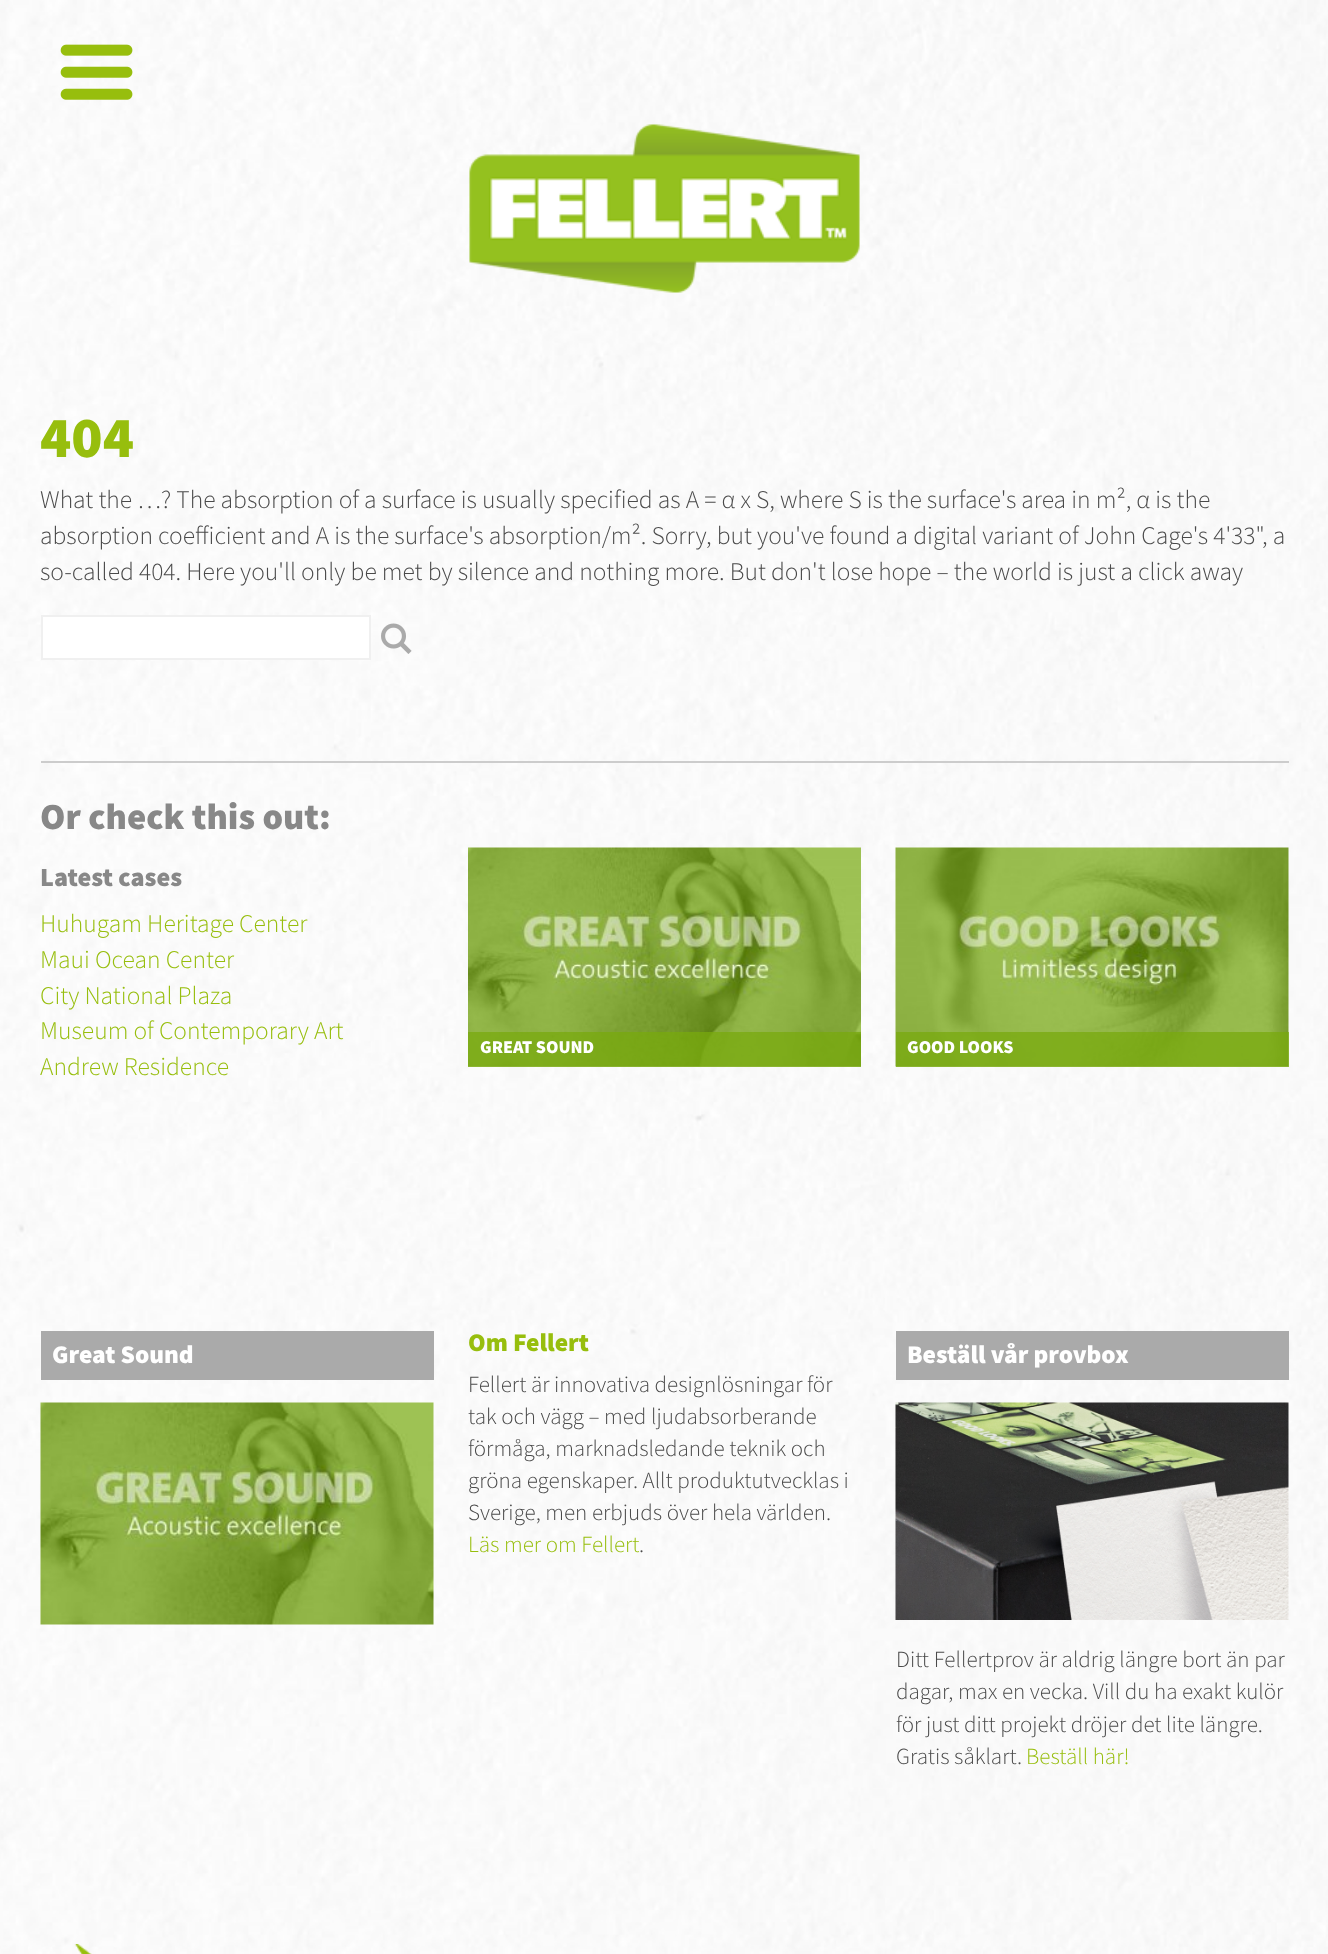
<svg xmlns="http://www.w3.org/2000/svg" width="1328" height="1954">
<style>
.a{font:900 58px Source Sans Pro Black;fill:#97be0d}
.b{font:300 25.5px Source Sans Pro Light;fill:#4a4a4a}
.c{font:900 36.75px Source Sans Pro Black;fill:#888}
.d{font:900 26.25px Source Sans Pro Black;fill:#888}
.e{font:300 25.5px Source Sans Pro Light;fill:#97be0d}
.f{font:900 18px Source Sans Pro Black;fill:#fff}
.g{font:900 25.5px Source Sans Pro Black;fill:#fff}
.h{font:900 25.5px Source Sans Pro Black;fill:#97be0d}
.i{font:300 23px Source Sans Pro Light;fill:#4a4a4a}
.j{font:300 23px Source Sans Pro Light;fill:#97be0d}
</style>
<rect width="100%" height="100%" fill="#fff"/>
<image href="1.png" x="0" y="0" width="1328" height="1954"/>
<image href="2.png" x="60" y="44" width="73" height="56"/>
<image href="3.png" x="469" y="124" width="391" height="169"/>
<path fill="#fff" stroke="#f0f0f0" stroke-width="2" d="M42 616h328v43H42z"/>
<image href="4.png" x="381" y="623" width="31" height="31"/>
<path fill="#ccc" d="M41 761h1248v2H41z"/>
<image href="5.png" x="468" y="847" width="393" height="220"/>
<path fill="#78aa0dbf" d="M468 1032h393v35H468z"/>
<image href="6.png" x="895" y="847" width="394" height="220"/>
<path fill="#78aa0dbf" d="M896 1032h393v35H896z"/>
<path fill="#aaa" d="M41 1331h393v49H41z"/>
<image href="7.png" x="40" y="1402" width="394" height="223"/>
<path fill="#aaa" d="M896 1331h393v49H896z"/>
<image href="8.png" x="895" y="1402" width="394" height="218"/>
<image href="9.png" x="74" y="1944" width="18" height="10"/>
<text class="a" x="40" y="457">404</text>
<text class="b" x="40" y="508">What the …? The absorption of a surface is usually specified as A = α x S, where S is the surface's area in m², α is the</text>
<text class="b" x="40" y="544">absorption coefficient and A is the surface's absorption/m². Sorry, but you've found a digital variant of John Cage's 4'33", a</text>
<text class="b" x="40" y="580">so-called 404. Here you'll only be met by silence and nothing more. But don't lose hope – the world is just a click away</text>
<text class="c" x="40" y="829">Or check this out:</text>
<text class="d" x="40" y="886">Latest cases</text>
<text class="e" x="40" y="932">Huhugam Heritage Center</text>
<text class="e" x="40" y="968">Maui Ocean Center</text>
<text class="e" x="40" y="1004">City National Plaza</text>
<text class="e" x="40" y="1039">Museum of Contemporary Art</text>
<text class="e" x="40" y="1075">Andrew Residence</text>
<text class="f" x="480" y="1053">GREAT SOUND</text>
<text class="f" x="907" y="1053">GOOD LOOKS</text>
<text class="g" x="52" y="1363">Great Sound</text>
<text class="h" x="468" y="1351">Om Fellert</text>
<text class="i" x="468" y="1392">Fellert är innovativa designlösningar för</text>
<text class="i" x="468" y="1424">tak och vägg – med ljudabsorberande</text>
<text class="i" x="468" y="1456">förmåga, marknadsledande teknik och</text>
<text class="i" x="468" y="1488">gröna egenskaper. Allt produktutvecklas i</text>
<text class="i" x="468" y="1520">Sverige, men erbjuds över hela världen.</text>
<text class="j" x="468" y="1552">Läs mer om Fellert</text>
<text class="i" x="639" y="1552">.</text>
<text class="g" x="907" y="1363">Beställ vår provbox</text>
<text class="i" x="896" y="1667">Ditt Fellertprov är aldrig längre bort än par</text>
<text class="i" x="896" y="1699">dagar, max en vecka. Vill du ha exakt kulör</text>
<text class="i" x="896" y="1732">för just ditt projekt dröjer det lite längre.</text>
<text class="i" x="896" y="1764">Gratis såklart.</text>
<text class="j" x="1026" y="1764">Beställ här!</text>
</svg>
